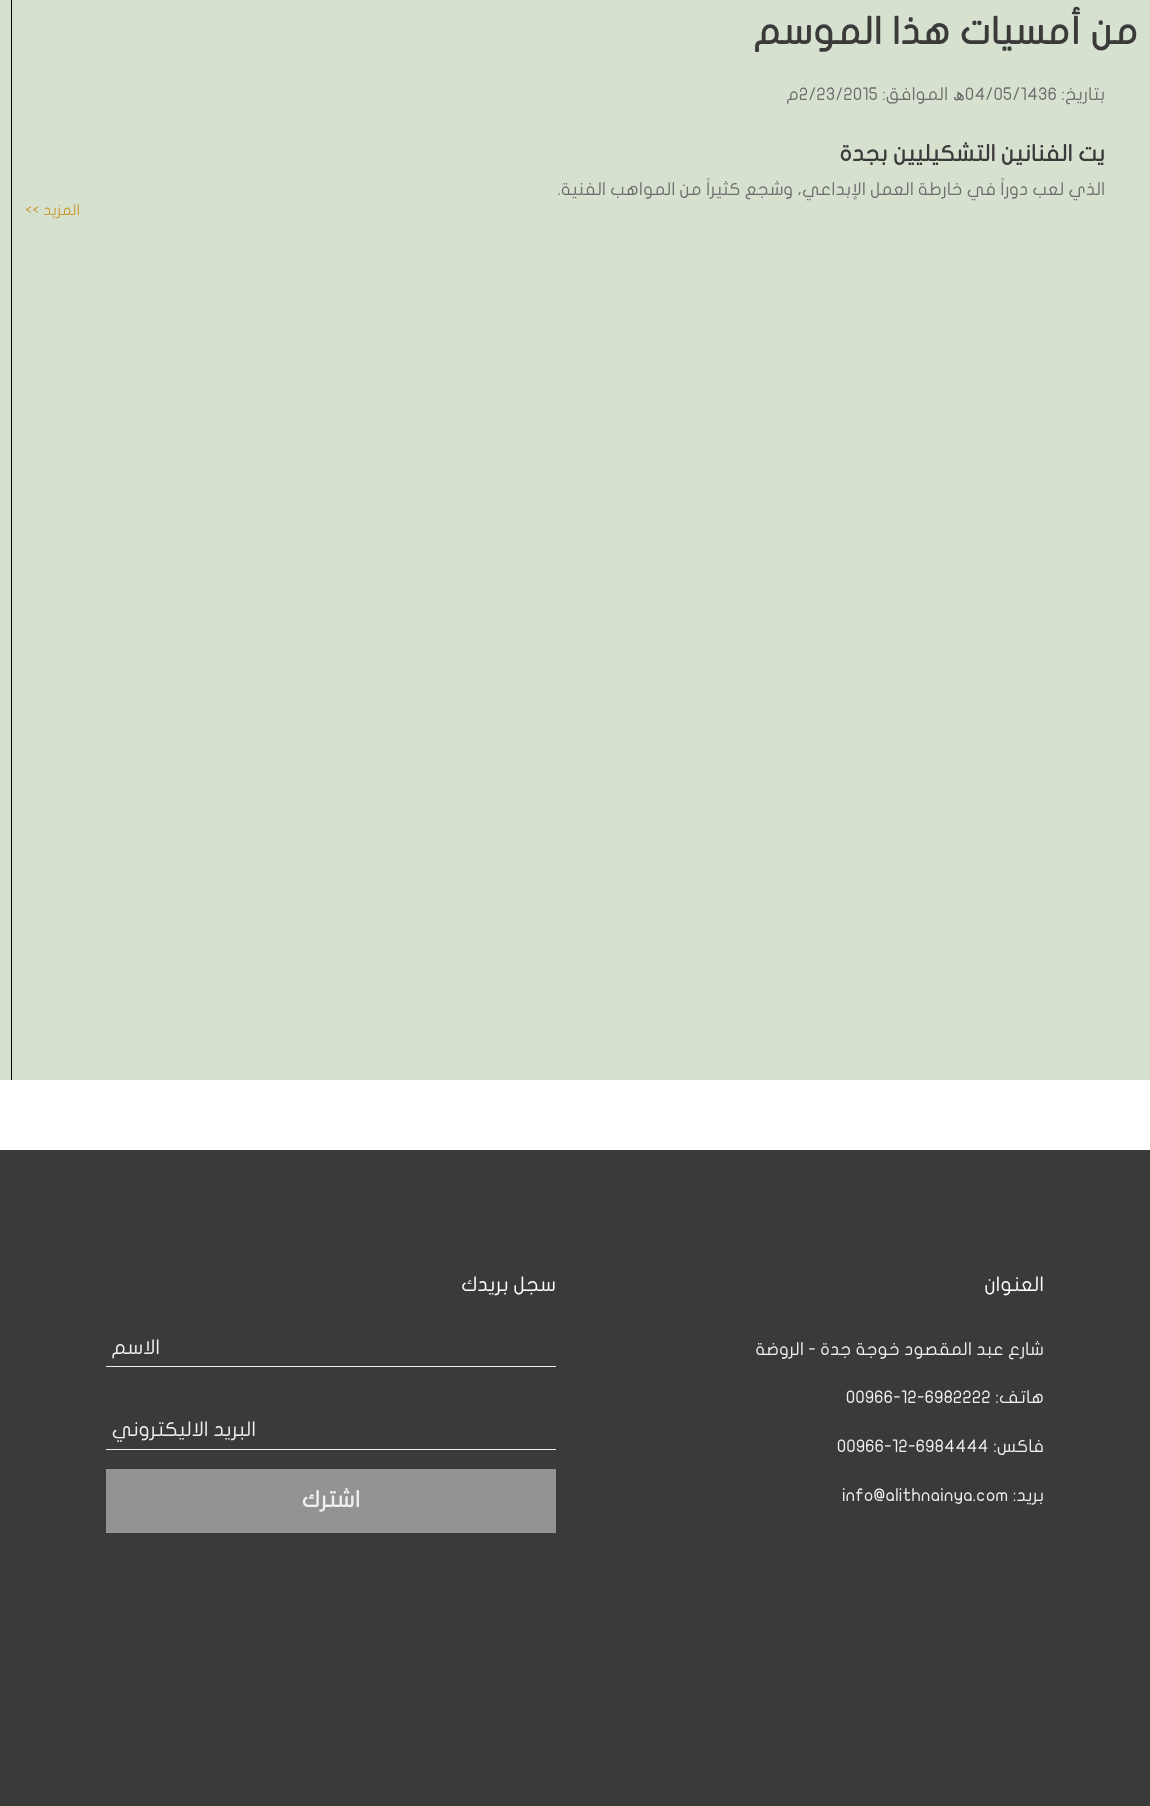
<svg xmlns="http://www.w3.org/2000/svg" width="1150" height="1806">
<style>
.a{font:bold 37.5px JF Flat;direction:rtl;fill:#3a3a3a}
.b{font:17.5px JF Flat;direction:rtl;fill:#6c6c6c}
.c{font:17.5px JF Flat;fill:#6c6c6c}
.d{font:17.5px DejaVu Sans;direction:rtl;fill:#6c6c6c}
.e{font:bold 22.5px JF Flat;direction:rtl;fill:#3a3a3a}
.f{font:15px JF Flat;direction:rtl;fill:#ca9933}
.g{font:20px JF Flat;direction:rtl;fill:#fff}
.h{font:17.5px JF Flat;direction:rtl;fill:#f0f0f0}
.i{font:17.5px JF Flat;fill:#f0f0f0}
.j{font:20px JF Flat;direction:rtl;fill:#f0f0f0}
.k{font:bold 22.5px JF Flat;direction:rtl;fill:#f0f0f0}
</style>
<rect width="100%" height="100%" fill="#3a3a3a"/>
<path fill="#fff" d="M0 1080h1150v70H0z"/>
<path fill="#d6e2cf" d="M0 0h1150v1080H0z"/>
<path fill="#000" d="M11 0h1v1080H11z"/>
<path fill="#f0f0f0" d="M106 1366h450v1H106z"/>
<path fill="#f0f0f0" d="M106 1449h450v1H106z"/>
<path fill="#939393" d="M106 1469h450v64H106z"/>
<text class="a" x="1138" y="44">من أمسيات هذا الموسم</text>
<text class="b" x="1105" y="100">بتاريخ:</text>
<text class="c" x="965" y="100">04/05/1436</text>
<text class="d" x="965" y="100">ھ</text>
<text class="b" x="948" y="100">الموافق:</text>
<text class="c" x="799" y="100">2/23/2015</text>
<text class="b" x="799" y="100">م</text>
<text class="e" x="1105" y="161">يت الفنانين التشكيليين بجدة</text>
<text class="b" x="1105" y="195">الذي لعب دوراً في خارطة العمل الإبداعي، وشجع كثيراً من المواهب الفنية.</text>
<text class="f" x="80" y="215">المزيد &gt;&gt;</text>
<text class="g" x="1044" y="1291">العنوان</text>
<text class="h" x="1044" y="1355">شارع عبد المقصود خوجة جدة - الروضة</text>
<text class="h" x="1044" y="1403">هاتف:</text>
<text class="i" x="846" y="1403">00966-12-6982222</text>
<text class="h" x="1044" y="1452">فاكس:</text>
<text class="i" x="837" y="1452">00966-12-6984444</text>
<text class="h" x="1044" y="1501">بريد:</text>
<text class="i" x="842" y="1501">info@alithnainya.com</text>
<text class="g" x="556" y="1291">سجل بريدك</text>
<text class="j" x="160" y="1354">الاسم</text>
<text class="j" x="256" y="1436">البريد الاليكتروني</text>
<text class="k" x="360" y="1507">اشترك</text>
</svg>
